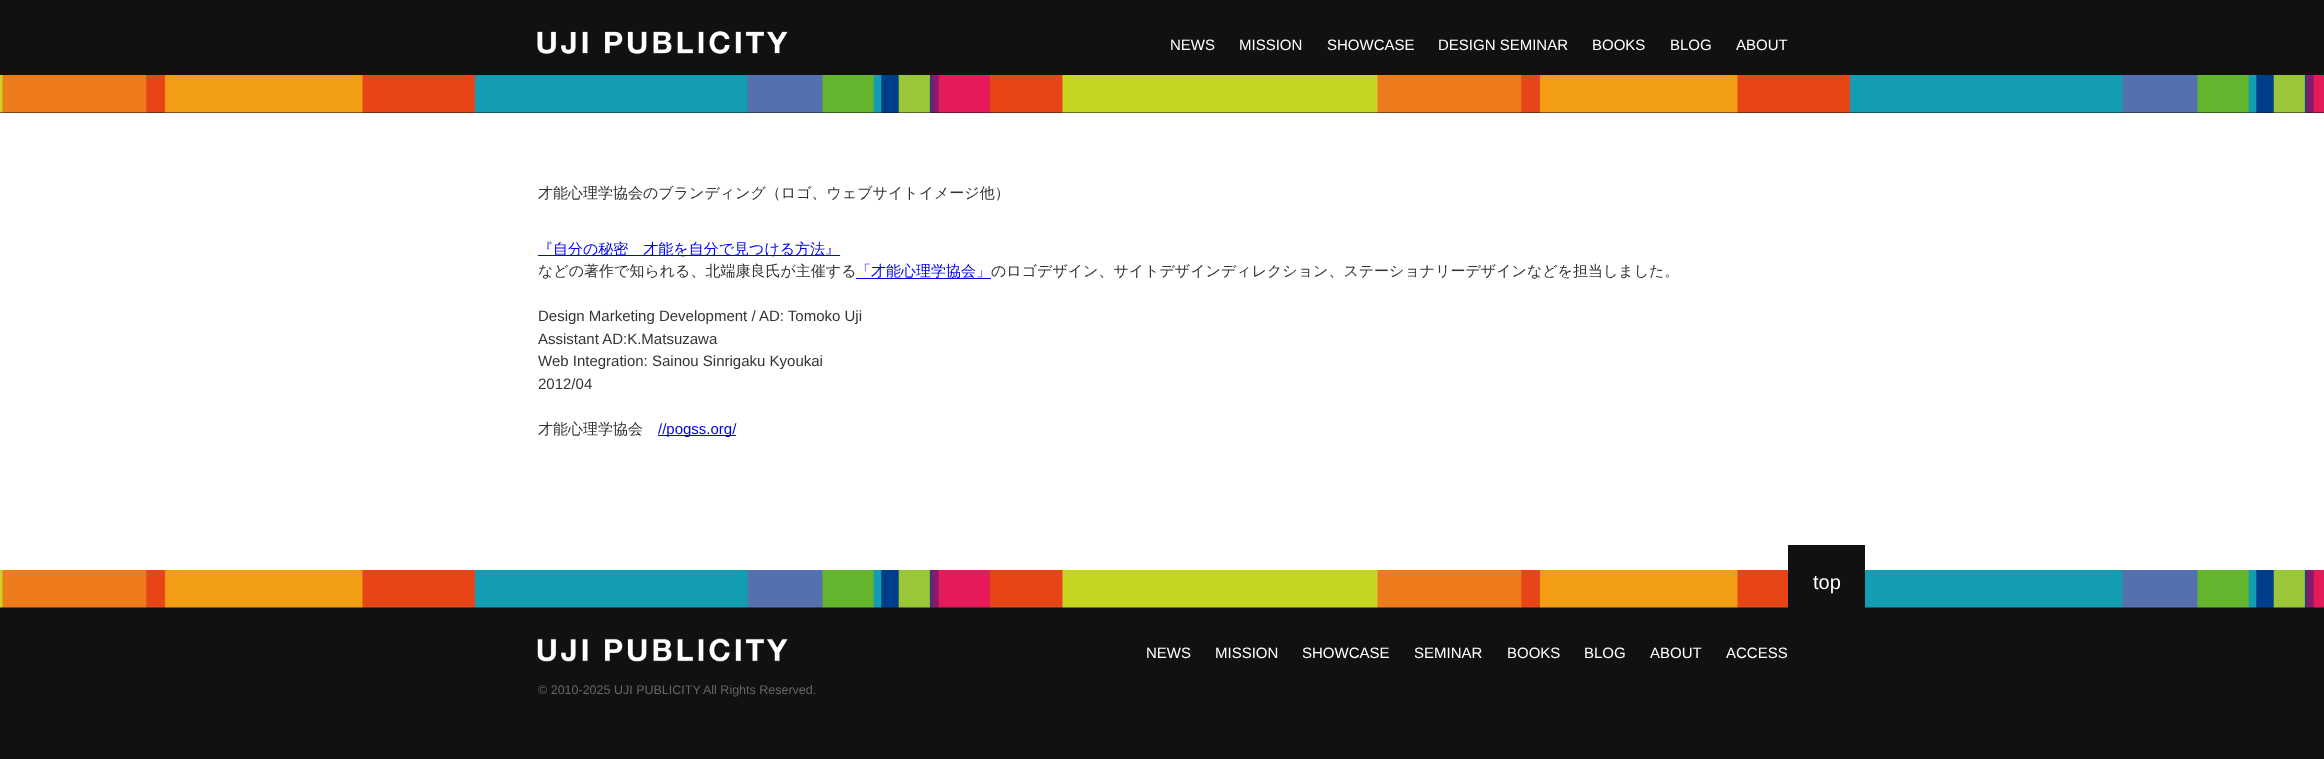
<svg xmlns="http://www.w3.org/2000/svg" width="2324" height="759">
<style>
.a{font:15px Liberation Sans;fill:#fff}
.b{font:500 15px WenQuanYi Zen Hei;fill:#333}
.c{font:500 15px WenQuanYi Zen Hei;fill:#00e}
.d{font:15px Liberation Sans;fill:#333}
.e{font:15px Liberation Sans;fill:#00e}
.f{font:20px Liberation Sans;fill:#fff}
.g{font:12.5px Liberation Sans;fill:#666}
</style>
<rect width="100%" height="100%" fill="#111"/>
<image href="1.png" x="537" y="31" width="251" height="23"/>
<image href="2.png" x="0" y="75" width="2324" height="38"/>
<path fill="#fff" d="M0 113h2324v457H0z"/>
<path fill="#00e" d="M538 255h302v1H538z"/>
<path fill="#00e" d="M856 278h135v1H856z"/>
<path fill="#00e" d="M658 435h78v1H658z"/>
<image href="3.png" x="0" y="570" width="2324" height="38"/>
<path fill="#111" d="M1788 545h77v63H1788z"/>
<image href="4.png" x="537" y="638" width="251" height="24"/>
<text class="a" x="1170" y="50">NEWS</text>
<text class="a" x="1239" y="50">MISSION</text>
<text class="a" x="1327" y="50">SHOWCASE</text>
<text class="a" x="1438" y="50">DESIGN SEMINAR</text>
<text class="a" x="1592" y="50">BOOKS</text>
<text class="a" x="1670" y="50">BLOG</text>
<text class="a" x="1736" y="50">ABOUT</text>
<text class="b" x="538" y="198">才能心理学協会のブランディング（ロゴ、ウェブサイトイメージ他）</text>
<text class="c" x="538" y="254">『自分の秘密　才能を自分で見つける方法』</text>
<text class="b" x="538" y="276">などの著作で知られる、北端康良氏が主催する</text>
<text class="c" x="856" y="276">「才能心理学協会」</text>
<text class="b" x="991" y="276">のロゴデザイン、サイトデザインディレクション、ステーショナリーデザインなどを担当しました。</text>
<text class="d" x="538" y="321">Design Marketing Development / AD: Tomoko Uji</text>
<text class="d" x="538" y="344">Assistant AD:K.Matsuzawa</text>
<text class="d" x="538" y="366">Web Integration: Sainou Sinrigaku Kyoukai</text>
<text class="d" x="538" y="389">2012/04</text>
<text class="b" x="538" y="434">才能心理学協会</text>
<text class="e" x="658" y="434">//pogss.org/</text>
<text class="f" x="1813" y="589">top</text>
<text class="a" x="1146" y="658">NEWS</text>
<text class="a" x="1215" y="658">MISSION</text>
<text class="a" x="1302" y="658">SHOWCASE</text>
<text class="a" x="1414" y="658">SEMINAR</text>
<text class="a" x="1507" y="658">BOOKS</text>
<text class="a" x="1584" y="658">BLOG</text>
<text class="a" x="1650" y="658">ABOUT</text>
<text class="a" x="1726" y="658">ACCESS</text>
<text class="g" x="538" y="694">© 2010-2025 UJI PUBLICITY</text>
<text class="g" x="703" y="694">All Rights Reserved.</text>
</svg>
